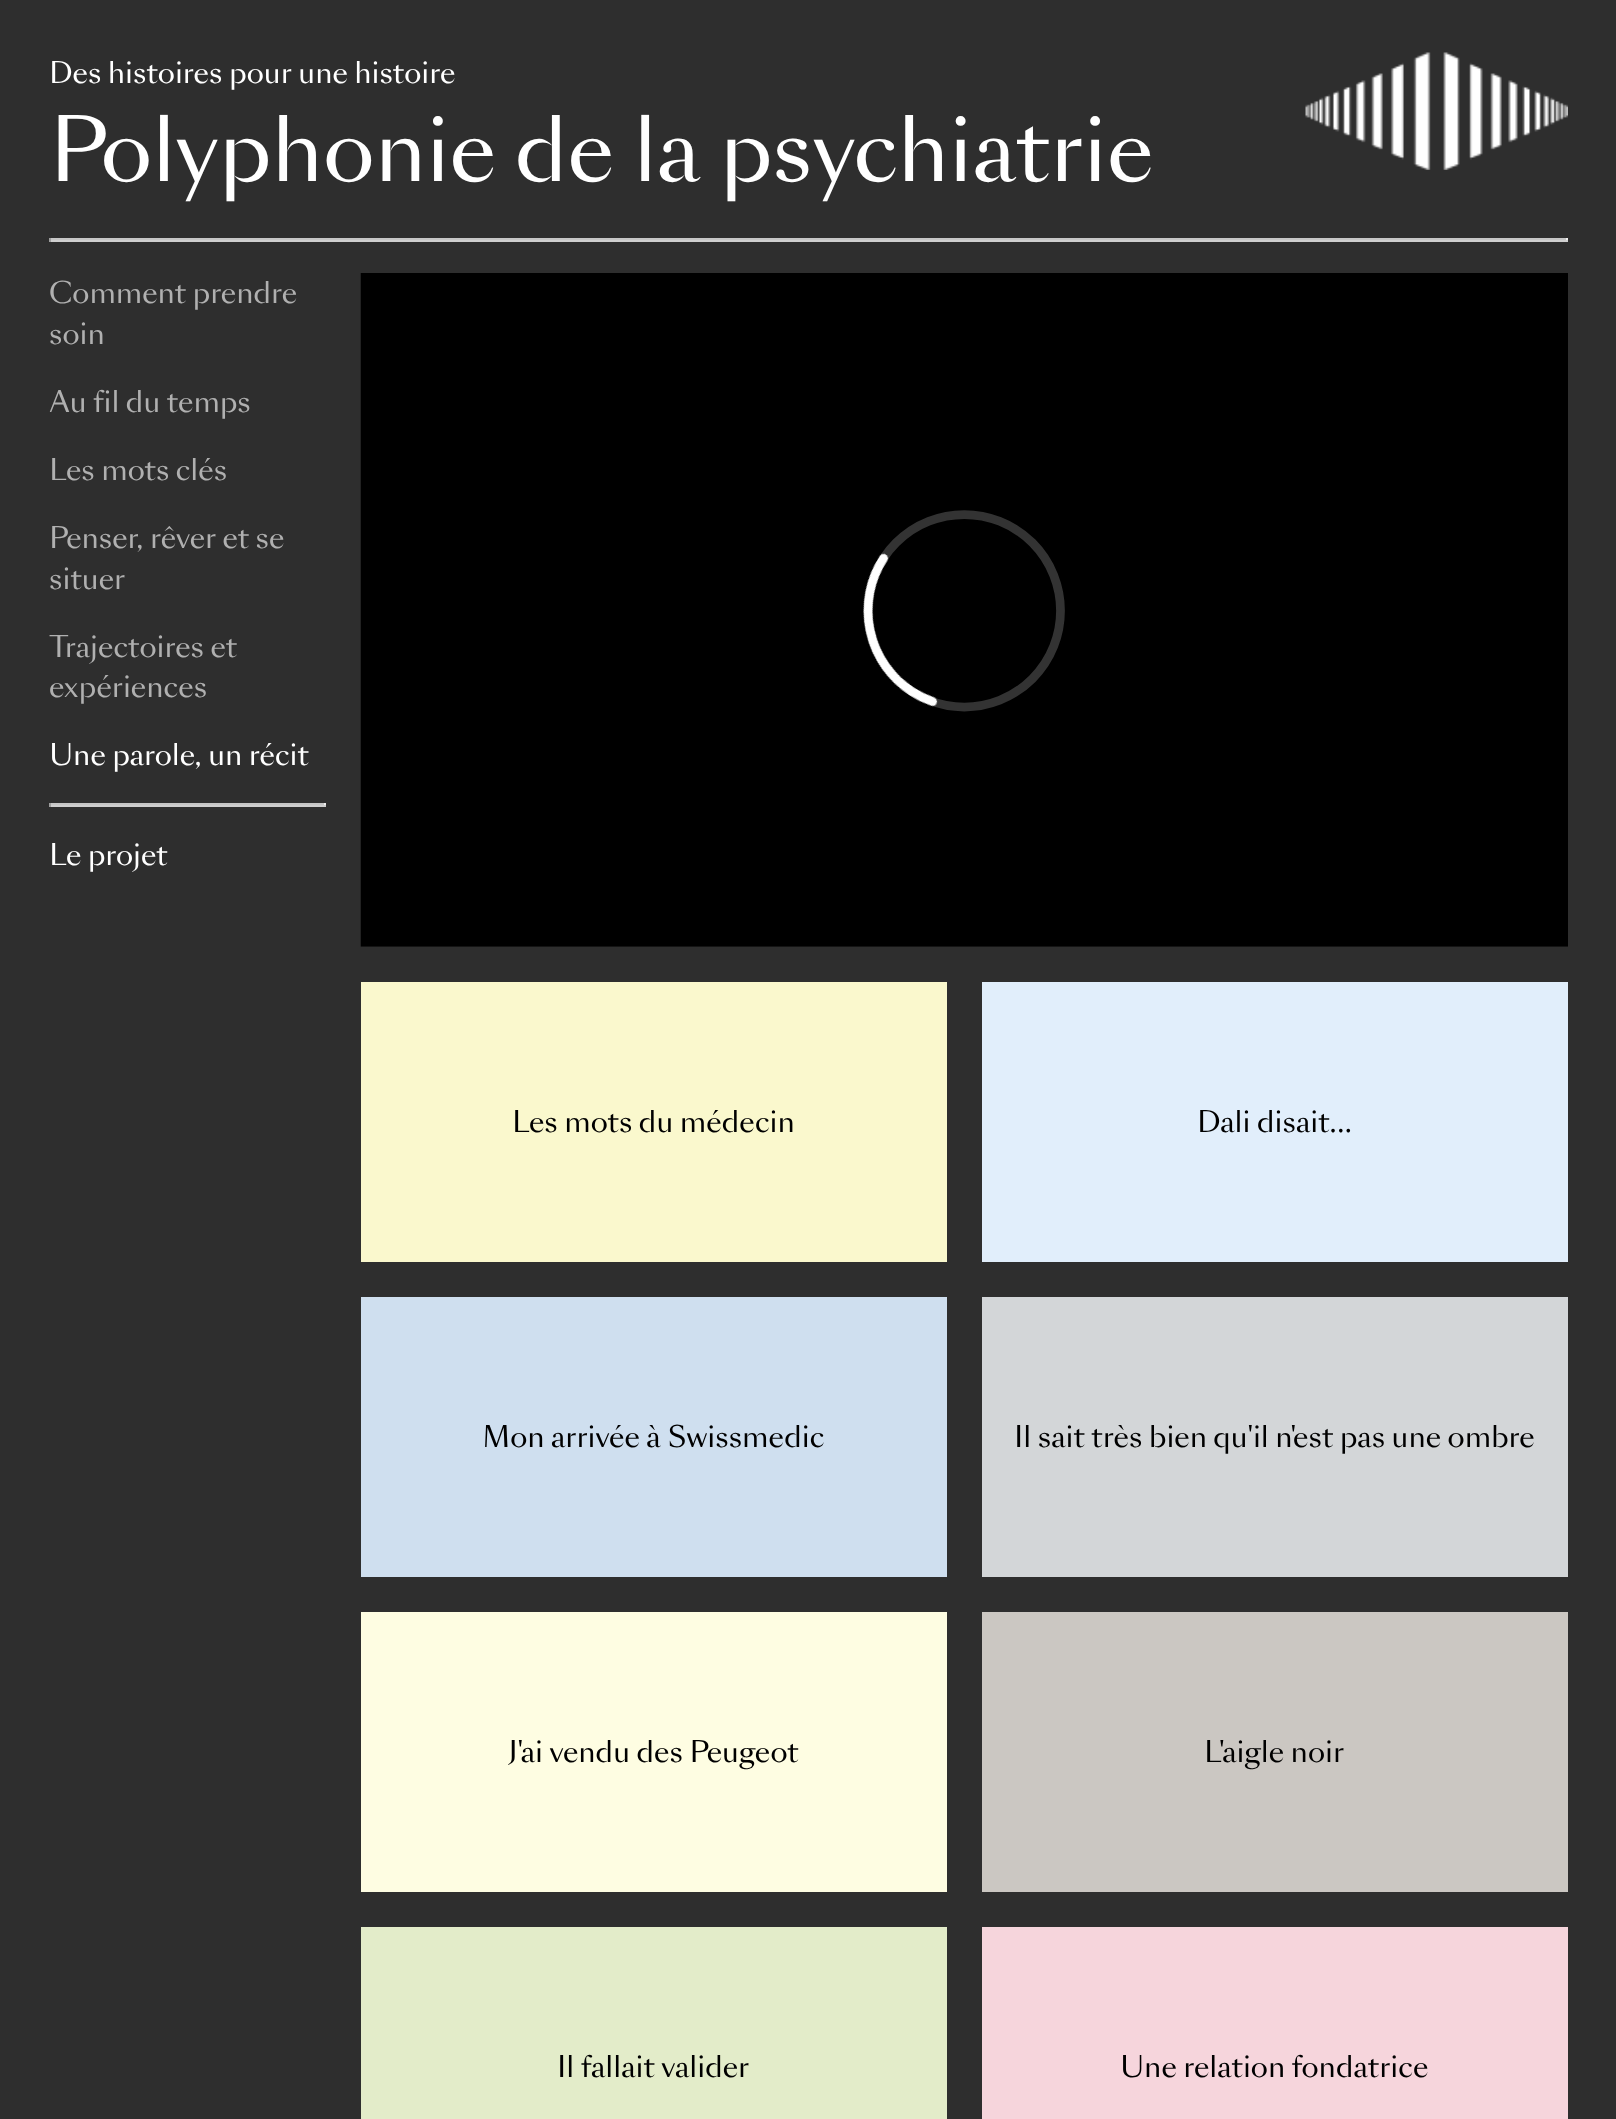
<svg xmlns="http://www.w3.org/2000/svg" width="1616" height="2119">
<style>
.a{font:28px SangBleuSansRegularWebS;fill:#fff}
.b{font:84px SangBleuSansRegularWebS;fill:#fff}
.c{font:28px SangBleuSansRegularWebS;fill:#b0b0b0}
.d{font:28px SangBleuSansRegularWebS;fill:#000}
</style>
<rect width="100%" height="100%" fill="#2e2e2e"/>
<image href="1.png" x="1305" y="52" width="263" height="118"/>
<path fill="#c6c6c6" d="M49 238h1519v2H49z"/>
<path fill="#eee" d="M1566 238h2v4H1566z"/>
<path fill="#cfcfcf" d="M49 240h1519v2H49z"/>
<path fill="#9f9f9f" d="M49 238h2v4H49z"/>
<path fill="#c6c6c6" d="M49 803h277v2H49z"/>
<path fill="#eee" d="M324 803h2v4H324z"/>
<path fill="#cfcfcf" d="M49 805h277v2H49z"/>
<path fill="#9f9f9f" d="M49 803h2v4H49z"/>
<image href="2.png" x="360" y="273" width="1208" height="674"/>
<path fill="#faf8cd" d="M361 982h586v280H361z"/>
<path fill="#e1eefb" d="M982 982h586v280H982z"/>
<path fill="#cfdfef" d="M361 1297h586v280H361z"/>
<path fill="#d3d6d8" d="M982 1297h586v280H982z"/>
<path fill="#fefde2" d="M361 1612h586v280H361z"/>
<path fill="#cbc7c2" d="M982 1612h586v280H982z"/>
<path fill="#e3ecc9" d="M361 1927h586v192H361z"/>
<path fill="#f6d5dc" d="M982 1927h586v192H982z"/>
<text class="a" x="49" y="83">Des histoires pour une histoire</text>
<text class="b" x="49" y="181">Polyphonie de la psychiatrie</text>
<text class="c" x="49" y="303">Comment prendre</text>
<text class="c" x="49" y="344">soin</text>
<text class="c" x="49" y="412">Au fil du temps</text>
<text class="c" x="49" y="480">Les mots clés</text>
<text class="c" x="49" y="548">Penser, rêver et se</text>
<text class="c" x="49" y="589">situer</text>
<text class="c" x="49" y="657">Trajectoires et</text>
<text class="c" x="49" y="697">expériences</text>
<text class="a" x="49" y="765">Une parole, un récit</text>
<text class="a" x="49" y="865">Le projet</text>
<text class="d" x="512" y="1132">Les mots du médecin</text>
<text class="d" x="1197" y="1132">Dali disait...</text>
<text class="d" x="482" y="1447">Mon arrivée à Swissmedic</text>
<text class="d" x="1014" y="1447">Il sait très bien qu'il n'est pas une ombre</text>
<text class="d" x="508" y="1762">J'ai vendu des Peugeot</text>
<text class="d" x="1204" y="1762">L'aigle noir</text>
<text class="d" x="557" y="2077">Il fallait valider</text>
<text class="d" x="1120" y="2077">Une relation fondatrice</text>
</svg>
